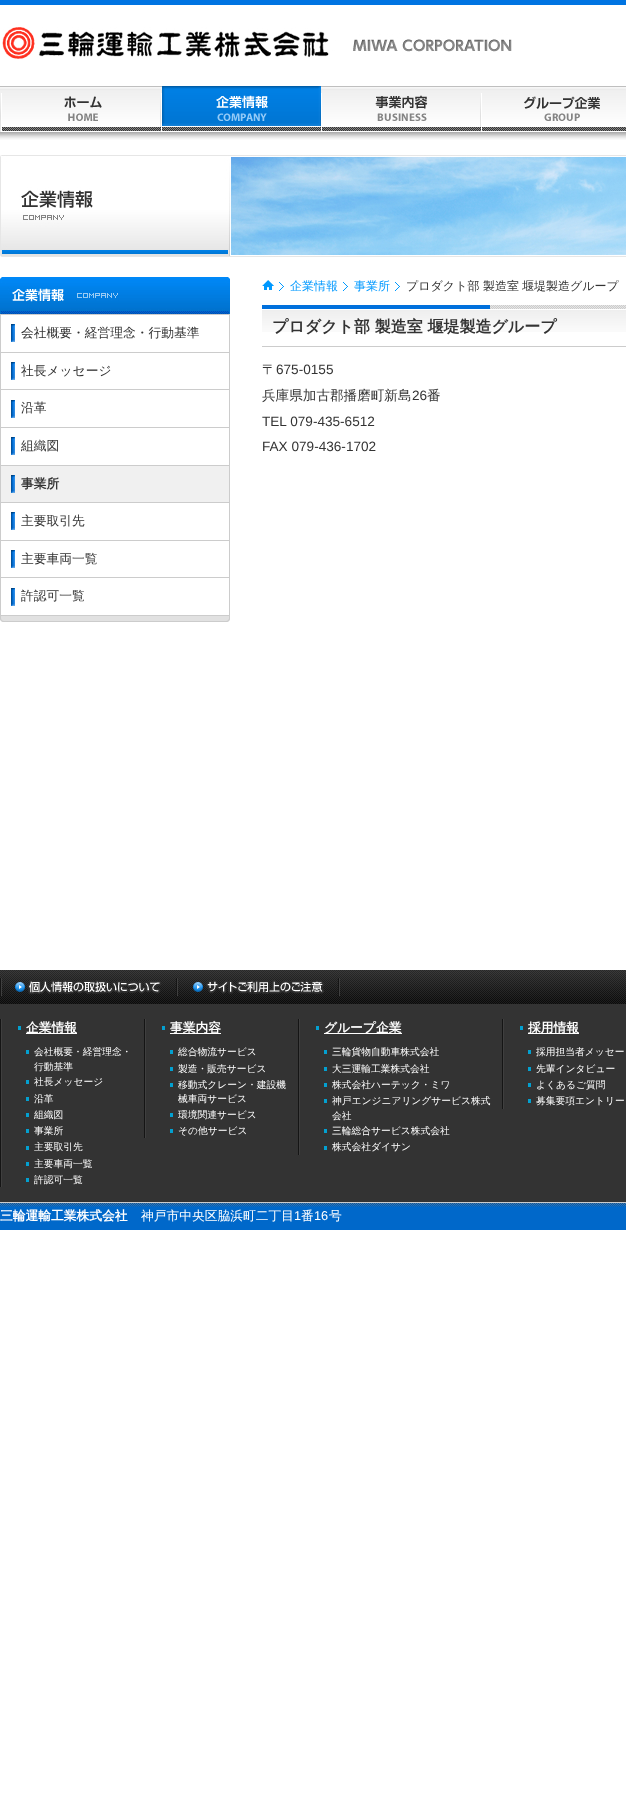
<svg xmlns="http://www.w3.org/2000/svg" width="626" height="1799">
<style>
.a{font:500 12.75px WenQuanYi Zen Hei;fill:#333}
.b{font:bold 12.75px WenQuanYi Zen Hei;fill:#333}
.c{font:500 12px WenQuanYi Zen Hei;fill:#09f}
.d{font:500 12px WenQuanYi Zen Hei;fill:#333}
.e{font:bold 16px WenQuanYi Zen Hei;fill:#333}
.f{font:500 13.6px WenQuanYi Zen Hei;fill:#333}
.g{font:13.6px Liberation Sans;fill:#333}
.h{font:bold 12.75px WenQuanYi Zen Hei;fill:#fff}
.i{font:500 9.75px WenQuanYi Zen Hei;fill:#fff}
.j{font:500 12.75px WenQuanYi Zen Hei;fill:#fff}
.k{font:12.75px Liberation Sans;fill:#fff}
</style>
<rect width="100%" height="100%" fill="#fff"/>
<path fill="#0074e2" d="M0 0h626v5H0z"/>
<image href="1.png" x="2" y="27" width="510" height="32"/>
<image href="2.png" x="0" y="86" width="626" height="54"/>
<image href="3.png" x="0" y="87" width="161" height="45"/>
<image href="4.png" x="161" y="86" width="160" height="46"/>
<image href="5.png" x="321" y="87" width="160" height="45"/>
<image href="6.png" x="481" y="87" width="145" height="44"/>
<image href="7.png" x="0" y="155" width="626" height="102"/>
<image href="8.png" x="0" y="615" width="230" height="7"/>
<image href="9.png" x="0" y="277" width="230" height="37"/>
<path fill="#ccc" d="M229 314h1v301H229z"/>
<path fill="#ccc" d="M0 314h1v301H0z"/>
<path fill="#ccc" d="M1 314h228v1H1z"/>
<image href="10.png" x="11" y="324" width="4" height="18"/>
<path fill="#ccc" d="M1 352h228v1H1z"/>
<image href="10.png" x="11" y="362" width="4" height="18"/>
<path fill="#ccc" d="M1 389h228v1H1z"/>
<image href="10.png" x="11" y="400" width="4" height="18"/>
<path fill="#ccc" d="M1 427h228v1H1z"/>
<image href="10.png" x="11" y="437" width="4" height="18"/>
<path fill="#f0f0f0" d="M1 466h228v36H1z"/>
<path fill="#ccc" d="M1 465h228v1H1z"/>
<image href="10.png" x="11" y="475" width="4" height="18"/>
<path fill="#ccc" d="M1 502h228v1H1z"/>
<image href="10.png" x="11" y="512" width="4" height="18"/>
<path fill="#ccc" d="M1 540h228v1H1z"/>
<image href="10.png" x="11" y="550" width="4" height="18"/>
<path fill="#ccc" d="M1 577h228v1H1z"/>
<image href="10.png" x="11" y="588" width="4" height="18"/>
<image href="11.png" x="262" y="280" width="12" height="10"/>
<image href="12.png" x="279" y="282" width="5" height="9"/>
<image href="12.png" x="343" y="282" width="5" height="9"/>
<image href="12.png" x="395" y="282" width="5" height="9"/>
<image href="13.png" x="262" y="305" width="364" height="27"/>
<path fill="#ccc" d="M262 346h364v1H262z"/>
<image href="14.png" x="0" y="970" width="626" height="34"/>
<image href="15.png" x="0" y="978" width="2" height="18"/>
<image href="15.png" x="176" y="978" width="2" height="18"/>
<image href="16.png" x="15" y="980" width="147" height="15"/>
<image href="15.png" x="338" y="978" width="2" height="18"/>
<image href="17.png" x="193" y="980" width="132" height="14"/>
<path fill="#333" d="M0 1004h626v198H0z"/>
<image href="18.png" x="0" y="1019" width="2" height="168"/>
<path fill="#03a0d0" d="M18 1026h3v4H18z"/>
<path fill="#fff" d="M26 1033h51v1H26z"/>
<path fill="#03a0d0" d="M26 1050h3v4H26z"/>
<path fill="#03a0d0" d="M26 1080h3v4H26z"/>
<path fill="#03a0d0" d="M26 1097h3v4H26z"/>
<path fill="#03a0d0" d="M26 1113h3v4H26z"/>
<path fill="#03a0d0" d="M26 1129h3v4H26z"/>
<path fill="#03a0d0" d="M26 1146h3v4H26z"/>
<path fill="#03a0d0" d="M26 1162h3v4H26z"/>
<path fill="#03a0d0" d="M26 1178h3v4H26z"/>
<image href="19.png" x="144" y="1019" width="2" height="119"/>
<path fill="#03a0d0" d="M162 1026h3v4H162z"/>
<path fill="#fff" d="M170 1033h51v1H170z"/>
<path fill="#03a0d0" d="M170 1050h3v4H170z"/>
<path fill="#03a0d0" d="M170 1067h3v4H170z"/>
<path fill="#03a0d0" d="M170 1083h3v4H170z"/>
<path fill="#03a0d0" d="M170 1113h3v4H170z"/>
<path fill="#03a0d0" d="M170 1129h3v4H170z"/>
<image href="20.png" x="298" y="1019" width="2" height="136"/>
<path fill="#03a0d0" d="M316 1026h3v4H316z"/>
<path fill="#fff" d="M324 1033h78v1H324z"/>
<path fill="#03a0d0" d="M324 1050h3v4H324z"/>
<path fill="#03a0d0" d="M324 1067h3v4H324z"/>
<path fill="#03a0d0" d="M324 1083h3v4H324z"/>
<path fill="#03a0d0" d="M324 1099h3v4H324z"/>
<path fill="#03a0d0" d="M324 1129h3v4H324z"/>
<path fill="#03a0d0" d="M324 1146h3v4H324z"/>
<image href="21.png" x="502" y="1019" width="2" height="90"/>
<path fill="#03a0d0" d="M520 1026h3v4H520z"/>
<path fill="#fff" d="M528 1033h51v1H528z"/>
<path fill="#03a0d0" d="M528 1050h3v4H528z"/>
<path fill="#03a0d0" d="M528 1067h3v4H528z"/>
<path fill="#03a0d0" d="M528 1083h3v4H528z"/>
<path fill="#03a0d0" d="M528 1099h3v4H528z"/>
<path fill="#0068ca" d="M0 1207h626v23H0z"/>
<image href="22.png" x="0" y="1203" width="626" height="4"/>
<path fill="#ccc" d="M0 1202h626v1H0z"/>
<text class="a" x="21" y="337">会社概要・経営理念・行動基準</text>
<text class="a" x="21" y="375">社長メッセージ</text>
<text class="a" x="21" y="412">沿革</text>
<text class="a" x="21" y="450">組織図</text>
<text class="b" x="21" y="488">事業所</text>
<text class="a" x="21" y="525">主要取引先</text>
<text class="a" x="21" y="563">主要車両一覧</text>
<text class="a" x="21" y="600">許認可一覧</text>
<text class="c" x="290" y="290">企業情報</text>
<text class="c" x="354" y="290">事業所</text>
<text class="d" x="406" y="290">プロダクト部 製造室</text>
<text class="d" x="522" y="290">堰堤製造グループ</text>
<text class="e" x="272" y="332">プロダクト部 製造室 堰堤製造グループ</text>
<text class="f" x="262" y="374">〒</text>
<text class="g" x="276" y="374">675-0155</text>
<text class="f" x="262" y="400">兵庫県加古郡播磨町新島</text>
<text class="g" x="412" y="400">26</text>
<text class="f" x="427" y="400">番</text>
<text class="g" x="262" y="426">TEL 079-435-6512</text>
<text class="g" x="262" y="451">FAX 079-436-1702</text>
<text class="h" x="26" y="1032">企業情報</text>
<text class="i" x="34" y="1055">会社概要・経営理念・</text>
<text class="i" x="34" y="1070">行動基準</text>
<text class="i" x="34" y="1085">社長メッセージ</text>
<text class="i" x="34" y="1102">沿革</text>
<text class="i" x="34" y="1118">組織図</text>
<text class="i" x="34" y="1134">事業所</text>
<text class="i" x="34" y="1150">主要取引先</text>
<text class="i" x="34" y="1167">主要車両一覧</text>
<text class="i" x="34" y="1183">許認可一覧</text>
<text class="h" x="170" y="1032">事業内容</text>
<text class="i" x="178" y="1055">総合物流サービス</text>
<text class="i" x="178" y="1072">製造・販売サービス</text>
<text class="i" x="178" y="1088">移動式クレーン・建設機</text>
<text class="i" x="178" y="1102">械車両サービス</text>
<text class="i" x="178" y="1118">環境関連サービス</text>
<text class="i" x="178" y="1134">その他サービス</text>
<text class="h" x="324" y="1032">グループ企業</text>
<text class="i" x="332" y="1055">三輪貨物自動車株式会社</text>
<text class="i" x="332" y="1072">大三運輸工業株式会社</text>
<text class="i" x="332" y="1088">株式会社ハーテック・ミワ</text>
<text class="i" x="332" y="1104">神戸エンジニアリングサービス株式</text>
<text class="i" x="332" y="1119">会社</text>
<text class="i" x="332" y="1134">三輪総合サービス株式会社</text>
<text class="i" x="332" y="1150">株式会社ダイサン</text>
<text class="h" x="528" y="1032">採用情報</text>
<text class="i" x="536" y="1055">採用担当者メッセー</text>
<text class="i" x="536" y="1072">先輩インタビュー</text>
<text class="i" x="536" y="1088">よくあるご質問</text>
<text class="i" x="536" y="1104">募集要項エントリー</text>
<text class="h" x="0" y="1220">三輪運輸工業株式会社</text>
<text class="j" x="141" y="1220">神戸市中央区脇浜町二丁目</text>
<text class="k" x="294" y="1220">1</text>
<text class="j" x="301" y="1220">番</text>
<text class="k" x="314" y="1220">16</text>
<text class="j" x="329" y="1220">号</text>
</svg>
